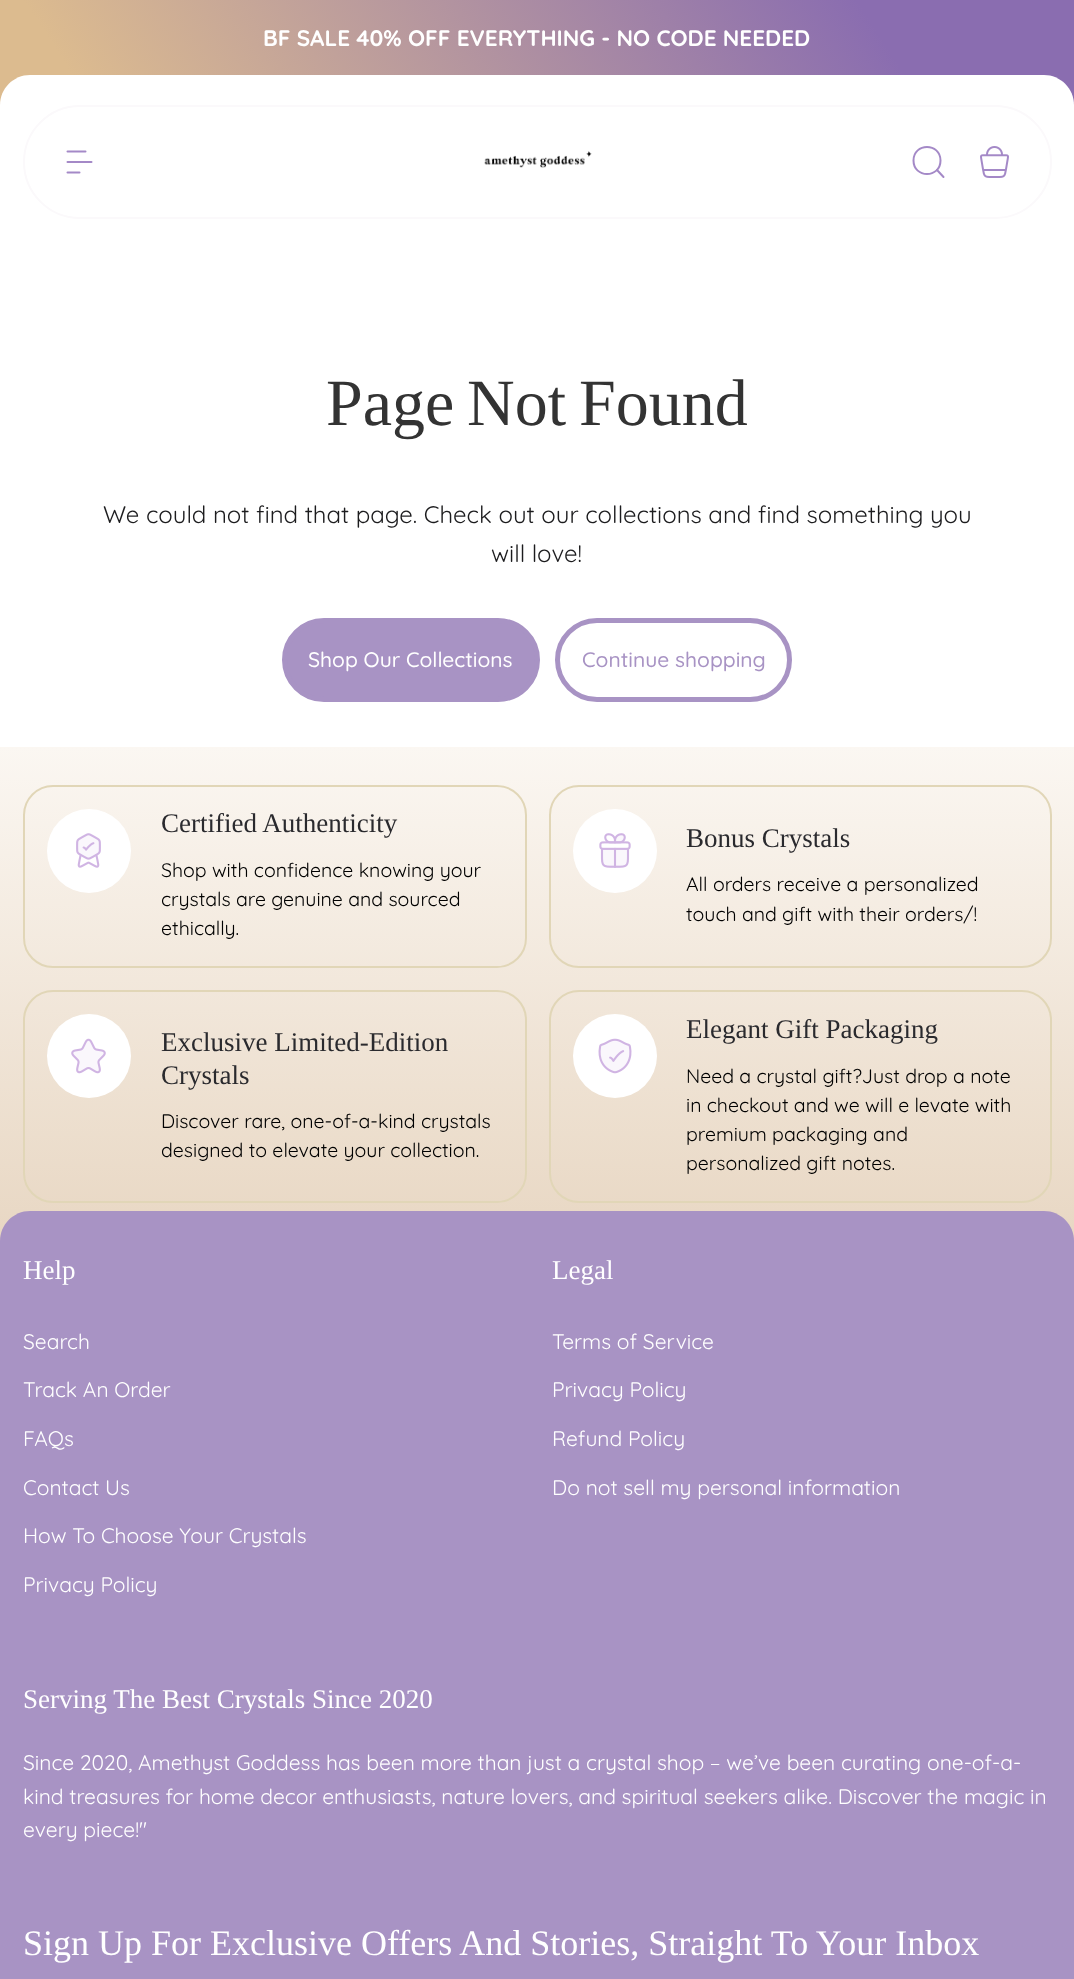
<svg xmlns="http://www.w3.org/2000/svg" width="1074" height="1979">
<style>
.a{font:bold 22.5px Quicksand;fill:#fff}
.b{font:66px Liberation Serif;fill:#333}
.c{font:24px Quicksand;fill:#1c1c1e}
.d{font:500 21px Quicksand;fill:#fff}
.e{font:500 21px Quicksand;fill:#a893c4}
.f{font:27px Liberation Serif;fill:#2a2a2e}
.g{font:19.5px Quicksand;fill:#000}
.h{font:27px Liberation Serif;fill:#fff}
.i{font:21px Quicksand;fill:#fff}
.j{font:36px Liberation Serif;fill:#fff}
</style>
<defs>
<linearGradient id="g1" gradientUnits="userSpaceOnUse" x1="135" y1="313" x2="939" y2="-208"><stop offset="0.08" stop-color="#dcbb8f"/><stop offset="0.81" stop-color="#8a6db0"/></linearGradient>
<linearGradient id="g2" gradientUnits="userSpaceOnUse" x1="537" y1="747" x2="537" y2="1241"><stop offset="0" stop-color="#fbf7f2"/><stop offset="1" stop-color="#e8d7c3"/></linearGradient>
</defs>
<rect width="100%" height="100%" fill="#fff"/>
<path fill="url(#g1)" d="M0 0h1074v105H0z"/>
<path fill="#fff" d="M30 75h1014c16.5 0 30 13.5 30 30v642h-1074v-642c0-16.5 13.5-30 30-30z"/>
<rect fill="none" stroke="#fbf9fb" stroke-width="2" x="24" y="106" width="1027" height="112" rx="56"/>
<path fill="none" stroke="#a489c7" stroke-width="2" stroke-linecap="round" stroke-linejoin="round" d="M67.5 151.5h18m-18 10.5h24m-24 10.5h12"/>
<image href="1.png" x="484" y="151" width="108" height="17"/>
<path fill="none" stroke="#a489c7" stroke-width="2" stroke-linecap="round" stroke-linejoin="round" d="M937 170l6.5 7"/>
<path fill="none" stroke="#a489c7" stroke-width="2" stroke-linejoin="round" d="M940.5 160.5c0-18-27-18-27 0c0 18 27 18 27 0z"/>
<image href="2.png" x="980" y="146" width="29" height="32"/>
<rect fill="#a893c4" stroke="#a893c4" stroke-width="5" x="284.5" y="620.5" width="253" height="79" rx="39.5"/>
<rect fill="none" stroke="#a893c4" stroke-width="5" x="557.5" y="620.5" width="232" height="79" rx="39.5"/>
<path fill="url(#g2)" d="M0 747h1074v494H0z"/>
<rect fill="none" stroke="#e1d6b7" stroke-width="2" x="24" y="786" width="502" height="181" rx="29"/>
<circle fill="#fff" cx="89" cy="851" r="42"/>
<image href="3.png" x="76" y="833" width="25" height="35"/>
<rect fill="none" stroke="#e1d6b7" stroke-width="2" x="550" y="786" width="501" height="181" rx="29"/>
<circle fill="#fff" cx="615" cy="851" r="42"/>
<image href="4.png" x="599" y="833" width="32" height="35"/>
<rect fill="none" stroke="#e1d6b7" stroke-width="2" x="24" y="991" width="502" height="211" rx="29"/>
<circle fill="#fff" cx="89" cy="1056" r="42"/>
<image href="5.png" x="71" y="1038" width="35" height="36"/>
<rect fill="none" stroke="#e1d6b7" stroke-width="2" x="550" y="991" width="501" height="211" rx="29"/>
<circle fill="#fff" cx="615" cy="1056" r="42"/>
<image href="6.png" x="598" y="1038" width="34" height="36"/>
<path fill="#a893c4" d="M30 1211h1014c16.5 0 30 13.5 30 30v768h-1074v-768c0-16.5 13.5-30 30-30z"/>
<text class="a" x="263" y="46">BF SALE 40% OFF EVERYTHING - NO CODE NEEDED</text>
<text class="b" x="326" y="425">Page</text>
<text class="b" x="467" y="425">Not</text>
<text class="b" x="579" y="425">Found</text>
<text class="c" x="103" y="523">We could not find that page. Check out our collections and find something you</text>
<text class="c" x="491" y="562">will love!</text>
<text class="d" x="308" y="667">Shop Our Collections</text>
<text class="e" x="582" y="667">Continue shopping</text>
<text class="f" x="161" y="832">Certified Authenticity</text>
<text class="g" x="161" y="877">Shop with confidence knowing your</text>
<text class="g" x="161" y="906">crystals are genuine and sourced</text>
<text class="g" x="161" y="935">ethically.</text>
<text class="f" x="686" y="847">Bonus Crystals</text>
<text class="g" x="686" y="891">All orders receive a personalized</text>
<text class="g" x="686" y="921">touch and gift with their orders/!</text>
<text class="f" x="161" y="1051">Exclusive Limited-Edition</text>
<text class="f" x="161" y="1084">Crystals</text>
<text class="g" x="161" y="1128">Discover rare, one-of-a-kind crystals</text>
<text class="g" x="161" y="1157">designed to elevate your collection.</text>
<text class="f" x="686" y="1038">Elegant Gift Packaging</text>
<text class="g" x="686" y="1083">Need a crystal gift?Just drop a note</text>
<text class="g" x="686" y="1112">in checkout and we will e levate with</text>
<text class="g" x="686" y="1141">premium packaging and</text>
<text class="g" x="686" y="1170">personalized gift notes.</text>
<text class="h" x="23" y="1279">Help</text>
<text class="i" x="23" y="1349">Search</text>
<text class="i" x="23" y="1397">Track An Order</text>
<text class="i" x="23" y="1446">FAQs</text>
<text class="i" x="23" y="1495">Contact Us</text>
<text class="i" x="23" y="1543">How To Choose Your Crystals</text>
<text class="i" x="23" y="1592">Privacy Policy</text>
<text class="h" x="552" y="1279">Legal</text>
<text class="i" x="552" y="1349">Terms of Service</text>
<text class="i" x="552" y="1397">Privacy Policy</text>
<text class="i" x="552" y="1446">Refund Policy</text>
<text class="i" x="552" y="1495">Do not sell my personal information</text>
<text class="h" x="23" y="1708">Serving The Best Crystals Since 2020</text>
<text class="i" x="23" y="1770">Since 2020, Amethyst Goddess has been more than just a crystal shop – we’ve been curating one-of-a-</text>
<text class="i" x="23" y="1804">kind treasures for home decor enthusiasts, nature lovers, and spiritual seekers alike. Discover the magic in</text>
<text class="i" x="23" y="1837">every piece!"</text>
<text class="j" x="23" y="1955">Sign Up For Exclusive Offers And Stories, Straight To Your Inbox</text>
</svg>
